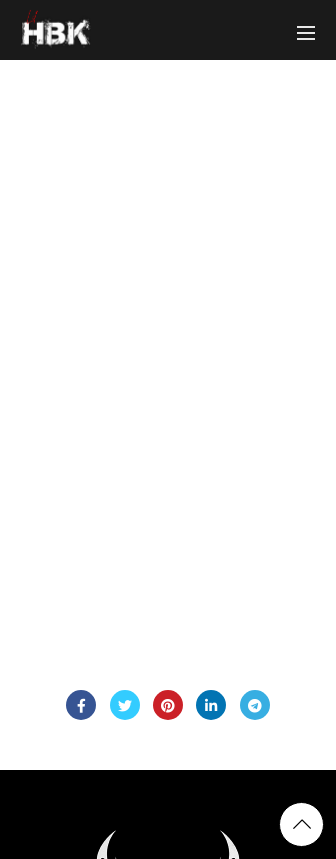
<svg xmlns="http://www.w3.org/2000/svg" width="336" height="859">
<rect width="100%" height="100%" fill="#fff"/>
<path fill="#1a1a1a" d="M0 0h336v60H0z"/>
<image href="1.png" x="21" y="9" width="70" height="40"/>
<path fill="#e8e8e8" d="M297 32h18v2H297z"/>
<path fill="#e8e8e8" d="M297 26h18v2H297z"/>
<path fill="#e8e8e8" d="M297 38h18v2H297z"/>
<circle fill="#365493" cx="81" cy="705" r="15"/>
<image href="2.png" x="77" y="698" width="9" height="15"/>
<circle fill="#3cf" cx="125" cy="705" r="15"/>
<image href="3.png" x="118" y="700" width="14" height="12"/>
<circle fill="#cb2027" cx="168" cy="705" r="15"/>
<image href="4.png" x="161" y="699" width="14" height="14"/>
<circle fill="#0274b3" cx="211" cy="705" r="15"/>
<image href="5.png" x="205" y="698" width="13" height="13"/>
<circle fill="#37aee2" cx="255" cy="705" r="15"/>
<image href="6.png" x="248" y="699" width="14" height="14"/>
<path fill="#000" d="M0 770h336v89H0z"/>
<image href="7.png" x="96" y="830" width="144" height="29"/>
<circle fill="#fff" stroke="#000" cx="301.5" cy="824.5" r="22"/>
<image href="8.png" x="293" y="819" width="18" height="10"/>
</svg>
